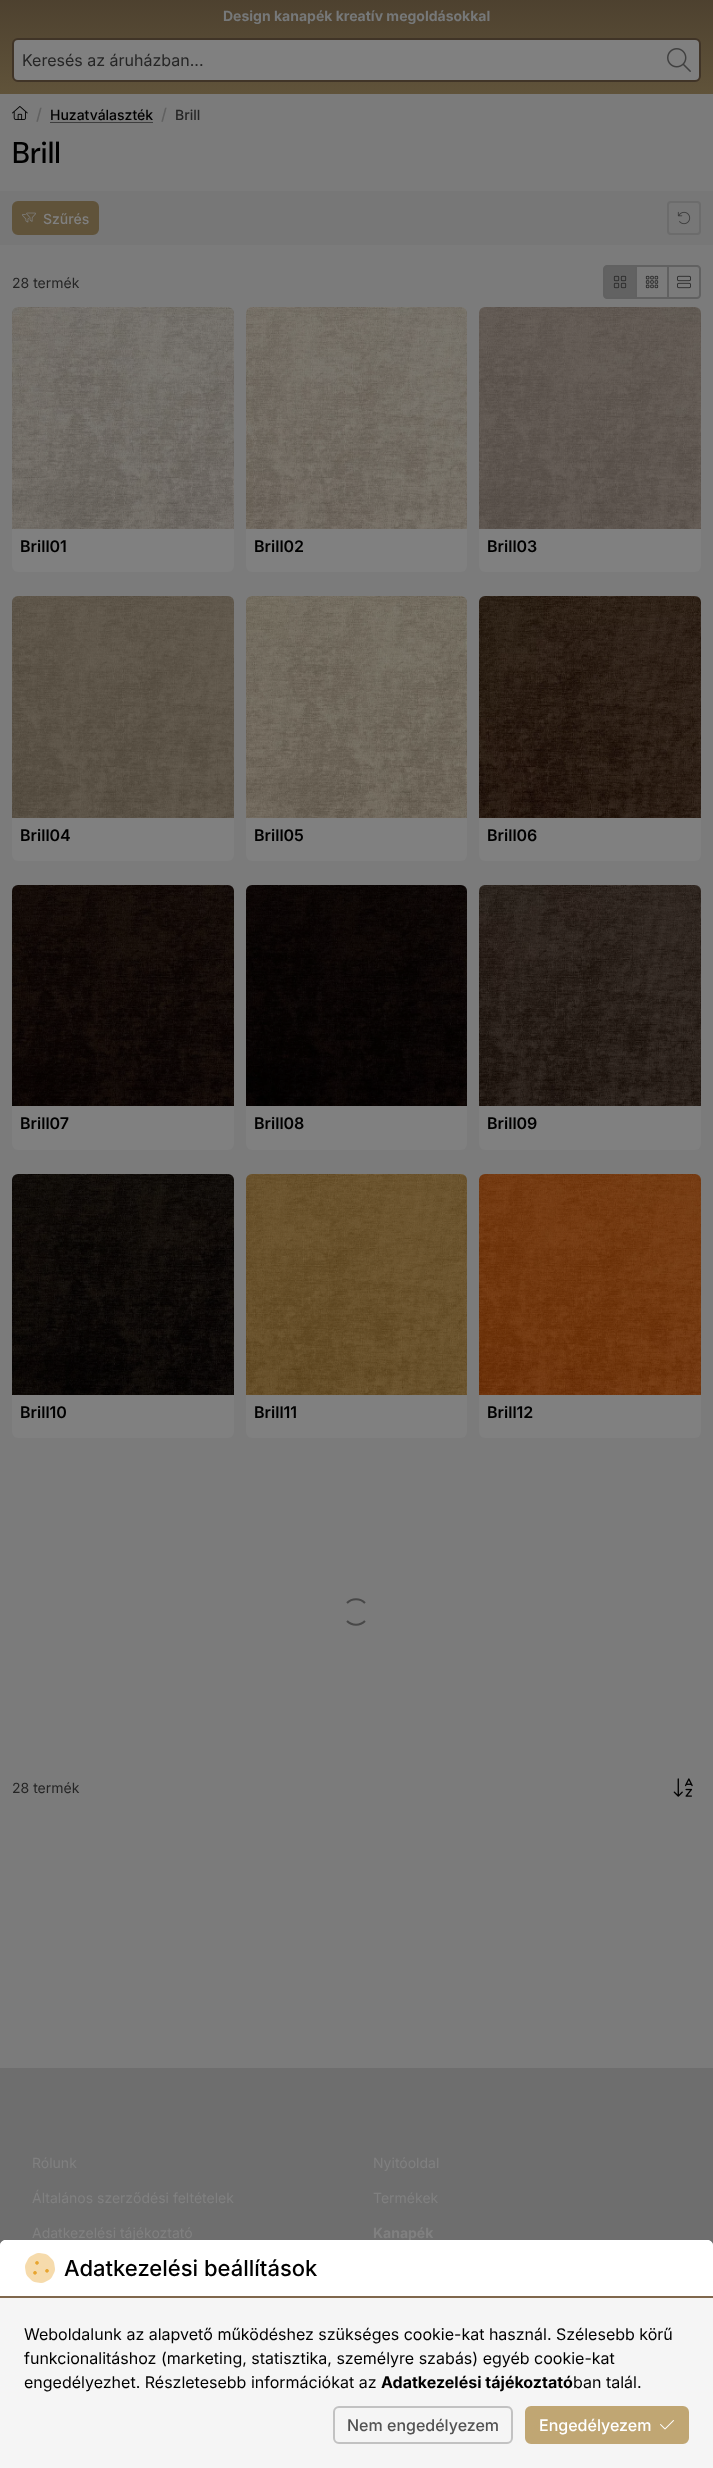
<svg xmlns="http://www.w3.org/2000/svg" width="713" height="2468">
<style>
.a{font:bold 14px Inter;fill:#767879}
.b{font:16px Inter;fill:#252525}
.c{font:500 16px Inter;fill:#616161}
.d{font:500 14px Inter;fill:#000}
.e{font:500 14px Inter;fill:#252525}
.f{font:500 30px DM Sans;fill:#000}
.g{font:500 14px Inter;fill:#808080}
.h{font:14px Inter;fill:#252525}
.i{font:600 16px Inter;fill:#000}
.j{font:14px Inter;fill:#808080}
.k{font:bold 14px Inter;fill:#808080}
.l{font:500 22px Inter;fill:#000}
.m{font:16px Inter;fill:#000}
.n{font:bold 16px Inter;fill:#000}
.o{font:500 16px Inter;fill:#525252}
.p{font:500 16px Inter;fill:#fff}
</style>
<defs>
<linearGradient id="g1" gradientUnits="userSpaceOnUse" x1="357" y1="-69" x2="357" y2="94"><stop offset="0" stop-color="#403427"/><stop offset="1" stop-color="#60533a"/></linearGradient>
</defs>
<rect width="100%" height="100%" fill="#7b7b7b"/>
<path fill="url(#g1)" d="M0 0h713v94H0z"/>
<rect fill="#808080" stroke="#403427" stroke-width="2" x="13" y="39" width="687" height="42" rx="5"/>
<image href="1.png" x="667" y="48" width="24" height="24"/>
<image href="2.png" x="12" y="106" width="16" height="14"/>
<path fill="#3e3e3e" d="M50 122h103v1H50z"/>
<path fill="#777" d="M0 191h713v54H0z"/>
<rect fill="#60533a" stroke="#60533a" stroke-width="2" x="13" y="202" width="85" height="32" rx="5"/>
<image href="3.png" x="22" y="212" width="14" height="11"/>
<rect fill="none" stroke="#6c6c6c" stroke-width="2" x="668" y="202" width="32" height="32" rx="3"/>
<image href="4.png" x="677" y="211" width="14" height="14"/>
<path fill="none" stroke="#616161" stroke-width="2" d="M636 266h32v32H636z"/>
<path fill="#626262" stroke="#616161" stroke-width="2" d="M607 266h29v32h-29c-1.5 0-3-1.5-3-3v-26c0-1.5 1.5-3 3-3z"/>
<image href="5.png" x="613" y="275" width="14" height="14"/>
<image href="6.png" x="645" y="275" width="14" height="14"/>
<path fill="#7b7b7b" stroke="#616161" stroke-width="2" d="M668 266h29c1.5 0 3 1.5 3 3v26c0 1.5-1.5 3-3 3h-29z"/>
<image href="7.png" x="677" y="275" width="14" height="14"/>
<rect fill="#808080" x="12" y="307" width="222" height="265" rx="6"/>
<image href="8.png" x="12" y="307" width="222" height="222"/>
<rect fill="#808080" x="246" y="307" width="221" height="265" rx="6"/>
<image href="9.png" x="246" y="307" width="221" height="222"/>
<rect fill="#808080" x="479" y="307" width="222" height="265" rx="6"/>
<image href="10.png" x="479" y="307" width="222" height="222"/>
<rect fill="#808080" x="12" y="596" width="222" height="265" rx="6"/>
<image href="11.png" x="12" y="596" width="222" height="222"/>
<rect fill="#808080" x="246" y="596" width="221" height="265" rx="6"/>
<image href="12.png" x="246" y="596" width="221" height="222"/>
<rect fill="#808080" x="479" y="596" width="222" height="265" rx="6"/>
<image href="13.png" x="479" y="596" width="222" height="222"/>
<rect fill="#808080" x="12" y="885" width="222" height="265" rx="6"/>
<image href="14.png" x="12" y="885" width="222" height="221"/>
<rect fill="#808080" x="246" y="885" width="221" height="265" rx="6"/>
<image href="15.png" x="246" y="885" width="221" height="221"/>
<rect fill="#808080" x="479" y="885" width="222" height="265" rx="6"/>
<image href="16.png" x="479" y="885" width="222" height="221"/>
<rect fill="#808080" x="12" y="1174" width="222" height="264" rx="6"/>
<image href="17.png" x="12" y="1174" width="222" height="221"/>
<rect fill="#808080" x="246" y="1174" width="221" height="264" rx="6"/>
<image href="18.png" x="246" y="1174" width="221" height="221"/>
<rect fill="#808080" x="479" y="1174" width="222" height="264" rx="6"/>
<image href="19.png" x="479" y="1174" width="222" height="221"/>
<path fill="none" stroke="#484848" stroke-width="2" d="M347 1603c5-5 13-5 18 0m0 18c-5 5-13 5-18 0"/>
<image href="20.png" x="673" y="1778" width="20" height="19"/>
<path fill="#6e6e6e" d="M0 2068h713v178H0z"/>
<text class="a" x="223" y="21">Design kanapék kreatív megoldásokkal</text>
<text class="b" x="22" y="66">Keresés az áruházban...</text>
<text class="c" x="36" y="120">/</text>
<text class="d" x="50" y="120">Huzatválaszték</text>
<text class="c" x="161" y="120">/</text>
<text class="e" x="175" y="120">Brill</text>
<text class="f" x="12" y="163">Brill</text>
<text class="g" x="43" y="224">Szűrés</text>
<text class="h" x="12" y="288">28 termék</text>
<text class="i" x="20" y="552">Brill01</text>
<text class="i" x="254" y="552">Brill02</text>
<text class="i" x="487" y="552">Brill03</text>
<text class="i" x="20" y="841">Brill04</text>
<text class="i" x="254" y="841">Brill05</text>
<text class="i" x="487" y="841">Brill06</text>
<text class="i" x="20" y="1129">Brill07</text>
<text class="i" x="254" y="1129">Brill08</text>
<text class="i" x="487" y="1129">Brill09</text>
<text class="i" x="20" y="1418">Brill10</text>
<text class="i" x="254" y="1418">Brill11</text>
<text class="i" x="487" y="1418">Brill12</text>
<text class="h" x="12" y="1793">28 termék</text>
<text class="j" x="32" y="2168">Rólunk</text>
<text class="j" x="32" y="2203">Általános szerződési feltételek</text>
<text class="j" x="32" y="2238">Adatkezelési tájékoztató</text>
<text class="j" x="373" y="2168">Nyitóoldal</text>
<text class="j" x="373" y="2203">Termékek</text>
<text class="k" x="373" y="2238">Kanapék</text>
<path fill="#f5f5f5" d="M6 2240h701c3.5 0 6 2.5 6 6v222h-713v-222c0-3.5 2.5-6 6-6z"/>
<path fill="#fff" d="M6 2240h701c3.5 0 6 2.5 6 6v52h-713v-52c0-3.5 2.5-6 6-6z"/>
<path fill="#80674d" d="M0 2296h713v2H0z"/>
<image href="21.png" x="25" y="2253" width="30" height="30"/>
<text class="l" x="64" y="2276">Adatkezelési beállítások</text>
<text class="m" x="24" y="2340">Weboldalunk az alapvető működéshez szükséges cookie-kat használ. Szélesebb körű</text>
<text class="m" x="24" y="2364">funkcionalitáshoz (marketing, statisztika, személyre szabás) egyéb cookie-kat</text>
<text class="m" x="24" y="2388">engedélyezhet. Részletesebb információkat az</text>
<text class="n" x="381" y="2388">Adatkezelési tájékoztató</text>
<text class="m" x="573" y="2388">ban talál.</text>
<rect fill="none" stroke="#c2c2c2" stroke-width="2" x="334" y="2407" width="178" height="36" rx="5"/>
<text class="o" x="347" y="2431">Nem engedélyezem</text>
<rect fill="#c0a673" stroke="#c0a673" stroke-width="2" x="526" y="2407" width="162" height="36" rx="5"/>
<text class="p" x="539" y="2431">Engedélyezem</text>
<image href="22.png" x="660" y="2420" width="14" height="10"/>
</svg>
